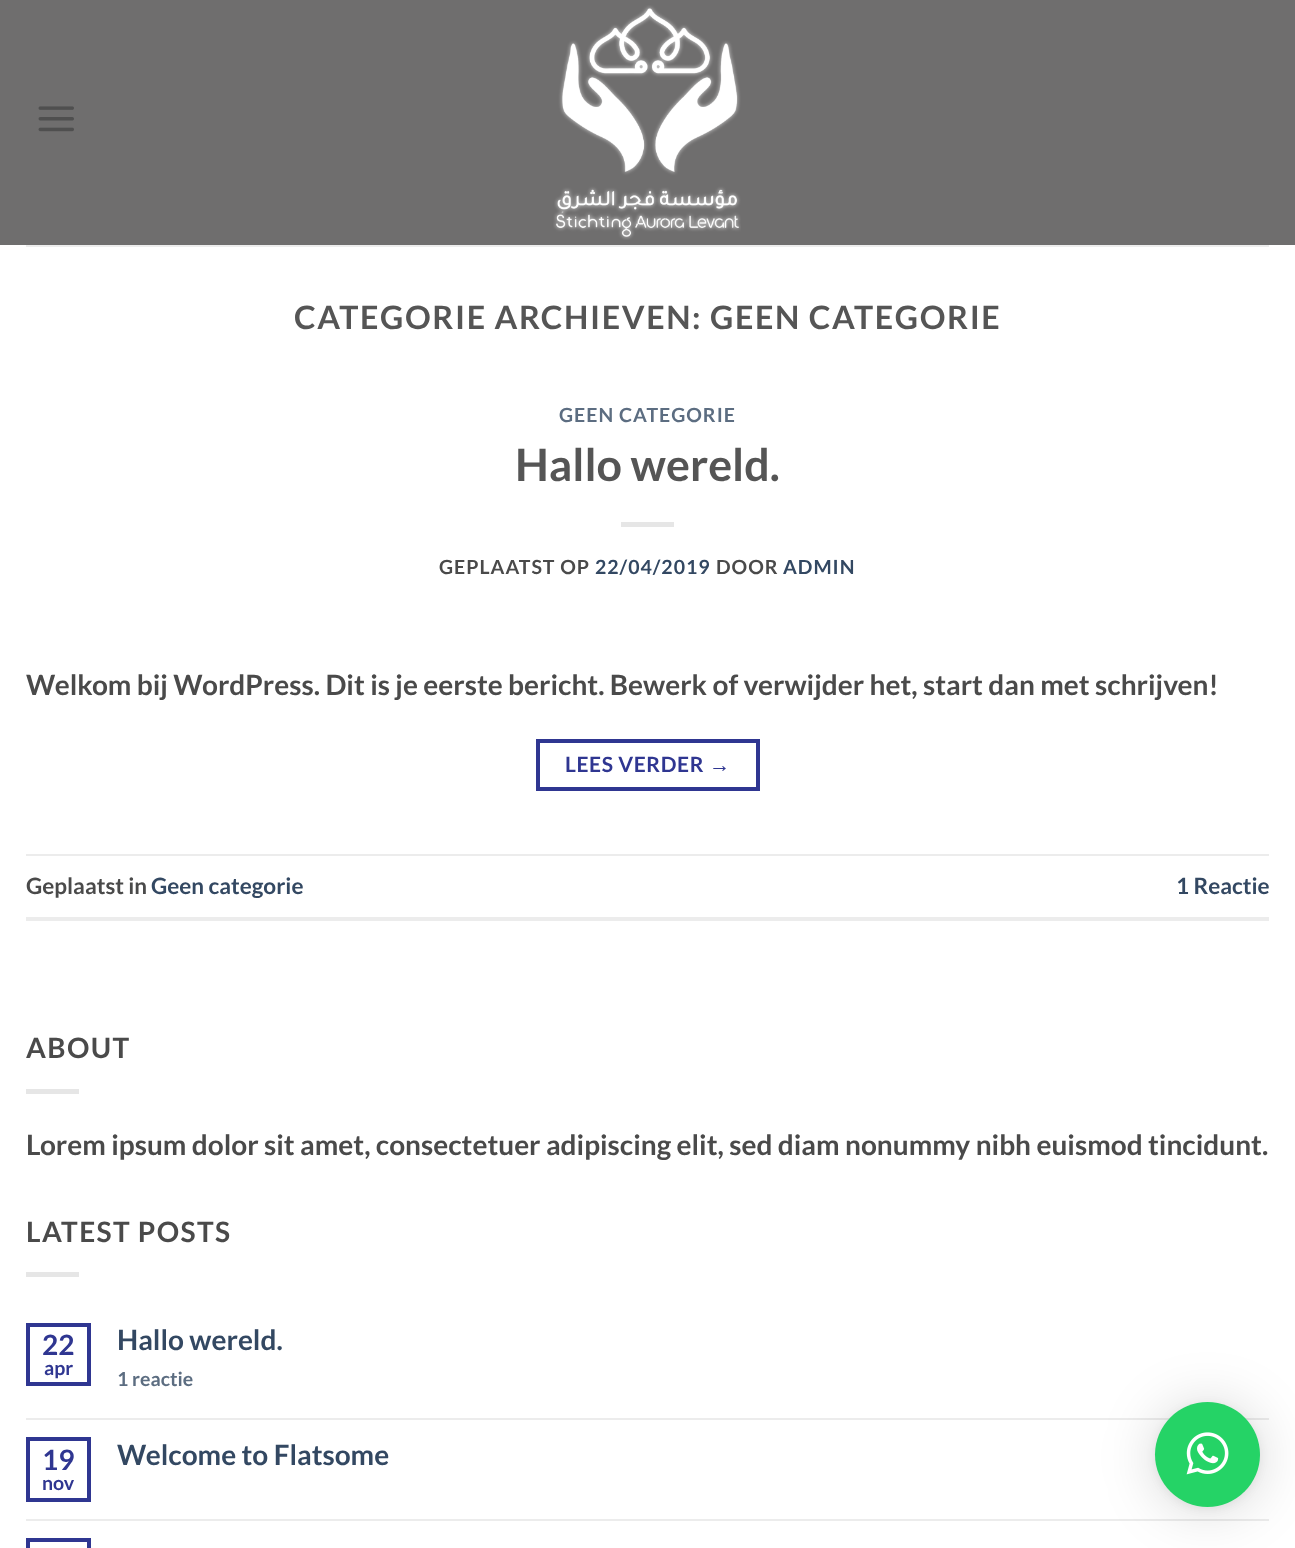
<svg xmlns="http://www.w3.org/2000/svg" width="1295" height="1548">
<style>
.a{font:bold 32.2px Lato;letter-spacing:1.6px;fill:#555}
.b{font:bold 19.5px Lato;letter-spacing:1px;fill:#5c6d81}
.c{font:bold 44.75px Lato;fill:#555}
.d{font:bold 19.5px Lato;letter-spacing:1px;fill:#4a4a4a}
.e{font:bold 19.5px Lato;letter-spacing:1px;fill:#334862}
.f{font:bold 28px Lato;fill:#4a4a4a}
.g{font:bold 21px Lato;letter-spacing:0.6px;fill:#2f3691}
.h{font:bold 21px Liberation Sans;letter-spacing:0.6px;fill:#2f3691}
.i{font:bold 22.5px Lato;fill:#4a4a4a}
.j{font:bold 22.5px Lato;fill:#334862}
.k{font:bold 28px Lato;letter-spacing:1.4px;fill:#4a4a4a}
.l{font:bold 28px Lato;fill:#2f3691}
.m{font:bold 19.5px Lato;fill:#2f3691}
.n{font:bold 28px Lato;fill:#334862}
.o{font:bold 19.5px Lato;fill:#5c6d81}
</style>
<rect width="100%" height="100%" fill="#fff"/>
<path fill="#6f6e6e" d="M0 0h1295v245H0z"/>
<image href="1.png" x="38" y="106" width="36" height="26"/>
<image href="2.png" x="553" y="5" width="188" height="235"/>
<path fill="#ededed" d="M26 245h1243v2H26z"/>
<path fill="#e6e6e6" d="M621 522h53v5H621z"/>
<path fill="none" stroke="#2f3691" stroke-width="4" d="M538 741h220v48H538z"/>
<path fill="#ececec" d="M26 854h1243v2H26z"/>
<path fill="#ececec" d="M26 917h1243v4H26z"/>
<path fill="#e6e6e6" d="M26 1089h53v5H26z"/>
<path fill="#e6e6e6" d="M26 1272h53v5H26z"/>
<path fill="none" stroke="#2f3691" stroke-width="4" d="M28 1325h61v59H28z"/>
<path fill="#ececec" d="M26 1418h1243v2H26z"/>
<path fill="none" stroke="#2f3691" stroke-width="4" d="M28 1439h61v61H28z"/>
<path fill="#ececec" d="M26 1519h1243v2H26z"/>
<path fill="none" stroke="#2f3691" stroke-width="4" d="M28 1540h61v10H28z"/>
<rect fill="#00000029" filter="blur(28px)" x="1155" y="1405" width="105" height="105" rx="52.5"/>
<rect fill="#0000000f" filter="blur(5px)" x="1155" y="1404" width="105" height="105" rx="52.5"/>
<circle fill="#25d366" cx="1207.5" cy="1454.5" r="52.5"/>
<image href="3.png" x="1186" y="1432" width="43" height="43"/>
<text class="a" x="294" y="329">CATEGORIE ARCHIEVEN: GEEN CATEGORIE</text>
<text class="b" x="559" y="422">GEEN CATEGORIE</text>
<text class="c" x="515" y="481">Hallo wereld.</text>
<text class="d" x="439" y="574">GEPLAATST OP</text>
<text class="e" x="595" y="574">22/04/2019</text>
<text class="d" x="716" y="574">DOOR</text>
<text class="e" x="783" y="574">ADMIN</text>
<text class="f" x="26" y="695">Welkom bij WordPress. Dit is je eerste bericht. Bewerk of verwijder het, start dan met schrijven!</text>
<text class="g" x="565" y="772">LEES VERDER</text>
<text class="h" x="709" y="772">→</text>
<text class="i" x="26" y="894">Geplaatst in</text>
<text class="j" x="151" y="894">Geen categorie</text>
<text class="j" x="1176" y="894">1 Reactie</text>
<text class="k" x="26" y="1058">ABOUT</text>
<text class="f" x="26" y="1155">Lorem ipsum dolor sit amet, consectetuer adipiscing elit, sed diam nonummy nibh euismod tincidunt.</text>
<text class="k" x="26" y="1242">LATEST POSTS</text>
<text class="l" x="42" y="1355">22</text>
<text class="m" x="44" y="1375">apr</text>
<text class="n" x="117" y="1350">Hallo wereld.</text>
<text class="o" x="117" y="1386">1 reactie</text>
<text class="l" x="42" y="1470">19</text>
<text class="m" x="42" y="1490">nov</text>
<text class="n" x="117" y="1465">Welcome to Flatsome</text>
</svg>
